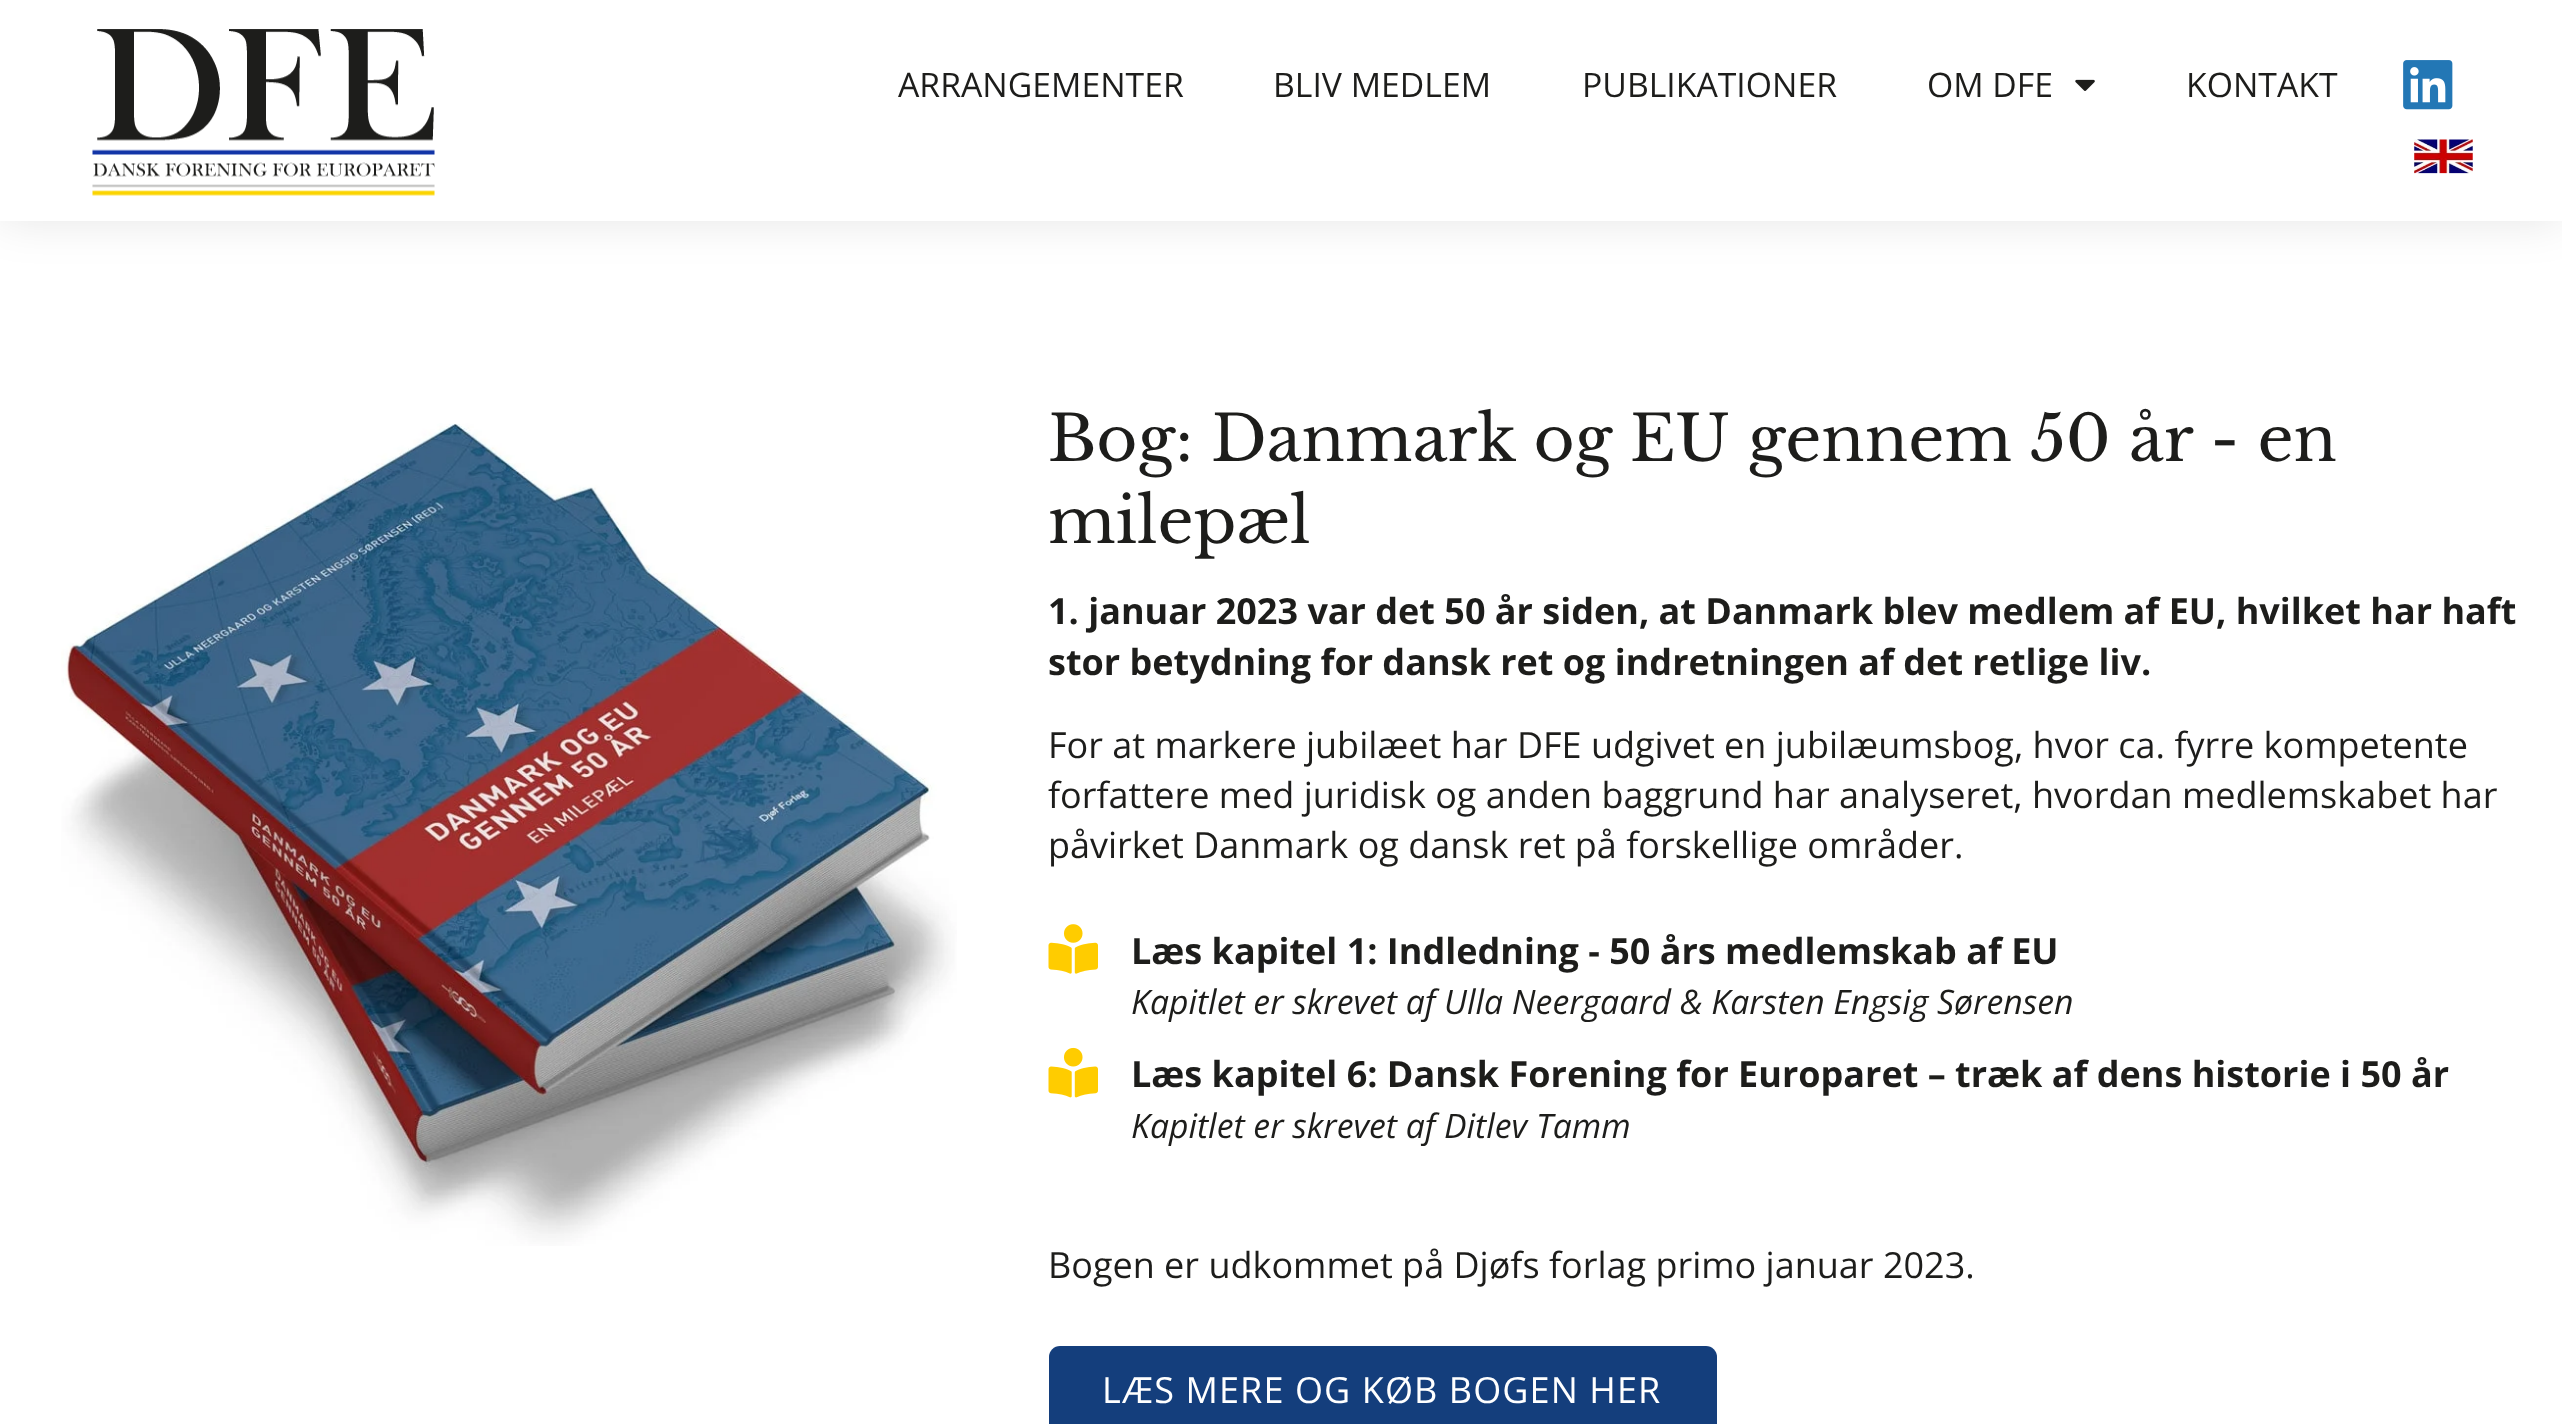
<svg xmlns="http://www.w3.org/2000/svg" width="2562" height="1424">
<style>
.a{font:33.75px Open Sans;fill:#1d1d1b}
.b{font:63px Libre Baskerville;fill:#1d1d1b}
.c{font:bold 36px Open Sans;fill:#1d1d1b}
.d{font:36px Open Sans;fill:#1d1d1b}
.e{font:italic 33.75px Open Sans;fill:#1d1d1b}
.f{font:36px Open Sans;letter-spacing:1.1px;fill:#fff}
</style>
<rect width="100%" height="100%" fill="#fff"/>
<path fill="#0000001a" filter="blur(22.5px)" d="M0 0h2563v221H0z"/>
<path fill="#fff" d="M0 0h2562v221H0z"/>
<image href="1.png" x="92" y="29" width="343" height="167"/>
<image href="2.png" x="2075" y="79" width="20" height="12"/>
<image href="3.png" x="2403" y="60" width="50" height="50"/>
<image href="4.png" x="2414" y="139" width="59" height="35"/>
<image href="5.png" x="61" y="423" width="896" height="823"/>
<image href="6.png" x="1048" y="924" width="50" height="50"/>
<image href="7.png" x="1048" y="1047" width="50" height="51"/>
<rect fill="#143e7c" x="1049" y="1346" width="668" height="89" rx="11"/>
<text class="a" x="898" y="97">ARRANGEMENTER</text>
<text class="a" x="1273" y="97">BLIV MEDLEM</text>
<text class="a" x="1582" y="97">PUBLIKATIONER</text>
<text class="a" x="1927" y="97">OM DFE</text>
<text class="a" x="2186" y="97">KONTAKT</text>
<text class="b" x="1048" y="461">Bog: Danmark og EU gennem 50 år - en</text>
<text class="b" x="1048" y="543">milepæl</text>
<text class="c" x="1048" y="624">1. januar 2023 var det 50 år siden, at Danmark blev medlem af EU, hvilket har haft</text>
<text class="c" x="1048" y="675">stor betydning for dansk ret og indretningen af det retlige liv.</text>
<text class="d" x="1048" y="758">For at markere jubilæet har DFE udgivet en jubilæumsbog, hvor ca. fyrre kompetente</text>
<text class="d" x="1048" y="808">forfattere med juridisk og anden baggrund har analyseret, hvordan medlemskabet har</text>
<text class="d" x="1048" y="858">påvirket Danmark og dansk ret på forskellige områder.</text>
<text class="c" x="1131" y="964">Læs kapitel 1: Indledning - 50 års medlemskab af EU</text>
<text class="e" x="1131" y="1014">Kapitlet er skrevet af Ulla Neergaard &amp; Karsten Engsig Sørensen</text>
<text class="c" x="1131" y="1087">Læs kapitel 6: Dansk Forening for Europaret – træk af dens historie i 50 år</text>
<text class="e" x="1131" y="1138">Kapitlet er skrevet af Ditlev Tamm</text>
<text class="d" x="1048" y="1278">Bogen er udkommet på Djøfs forlag primo januar 2023.</text>
<text class="f" x="1102" y="1403">LÆS MERE OG KØB BOGEN HER</text>
</svg>
